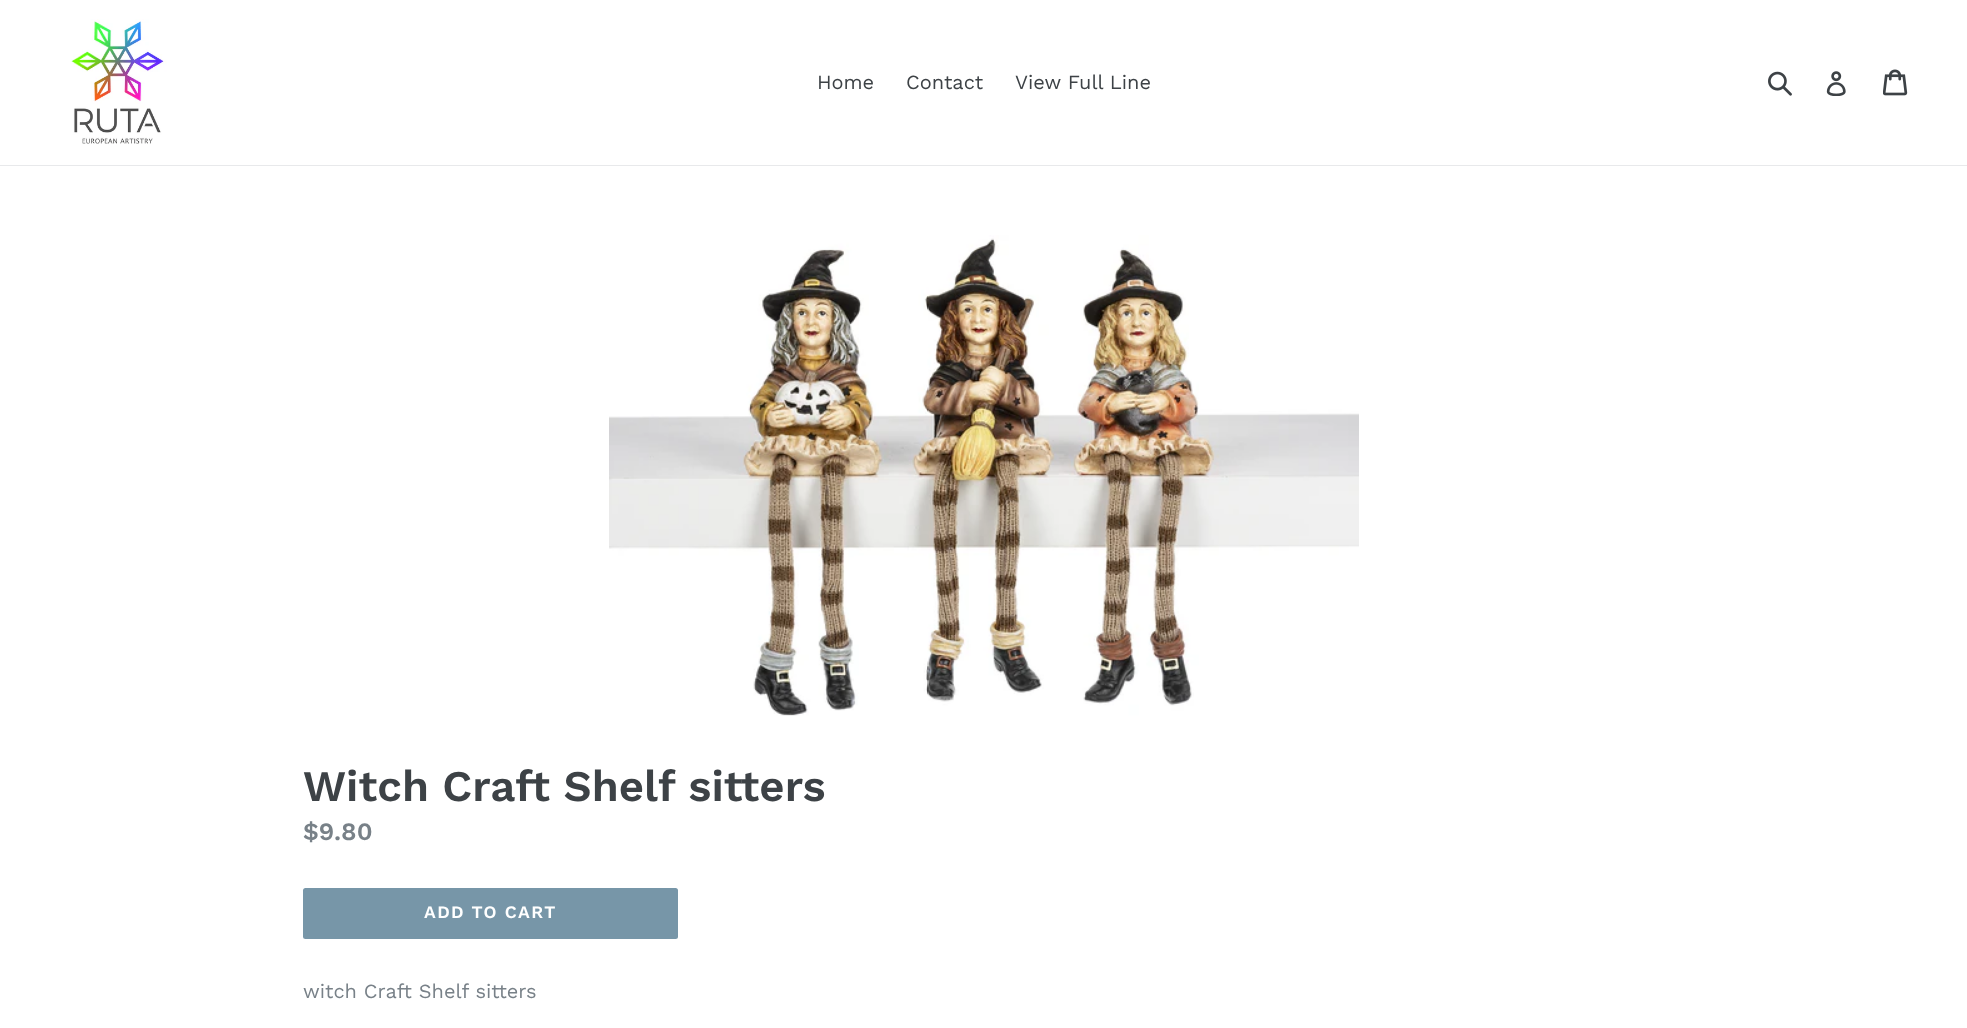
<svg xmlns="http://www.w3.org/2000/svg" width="1967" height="1028">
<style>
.a{font:20px Work Sans;fill:#3d4246}
.b{font:600 43.75px Work Sans;fill:#3d4246}
.c{font:600 25px Work Sans;fill:#788188}
.d{font:600 17.5px Work Sans;letter-spacing:1.4px;fill:#fff}
.e{font:20px Work Sans;fill:#788188}
</style>
<rect width="100%" height="100%" fill="#fff"/>
<path fill="#e8e9eb" d="M0 165h1967v1H0z"/>
<image href="1.png" x="71" y="19" width="96" height="125"/>
<image href="2.png" x="1768" y="71" width="24" height="25"/>
<image href="3.png" x="1826" y="71" width="20" height="25"/>
<image href="4.png" x="1883" y="69" width="25" height="27"/>
<image href="5.png" x="609" y="235" width="750" height="481"/>
<rect fill="#7796a8" x="303" y="888" width="375" height="51" rx="2.5"/>
<text class="a" x="817" y="89">Home</text>
<text class="a" x="906" y="89">Contact</text>
<text class="a" x="1015" y="89">View Full Line</text>
<text class="b" x="303" y="801">Witch Craft Shelf sitters</text>
<text class="c" x="303" y="840">$9.80</text>
<text class="d" x="424" y="918">ADD TO CART</text>
<text class="e" x="303" y="998">witch Craft Shelf sitters</text>
</svg>
